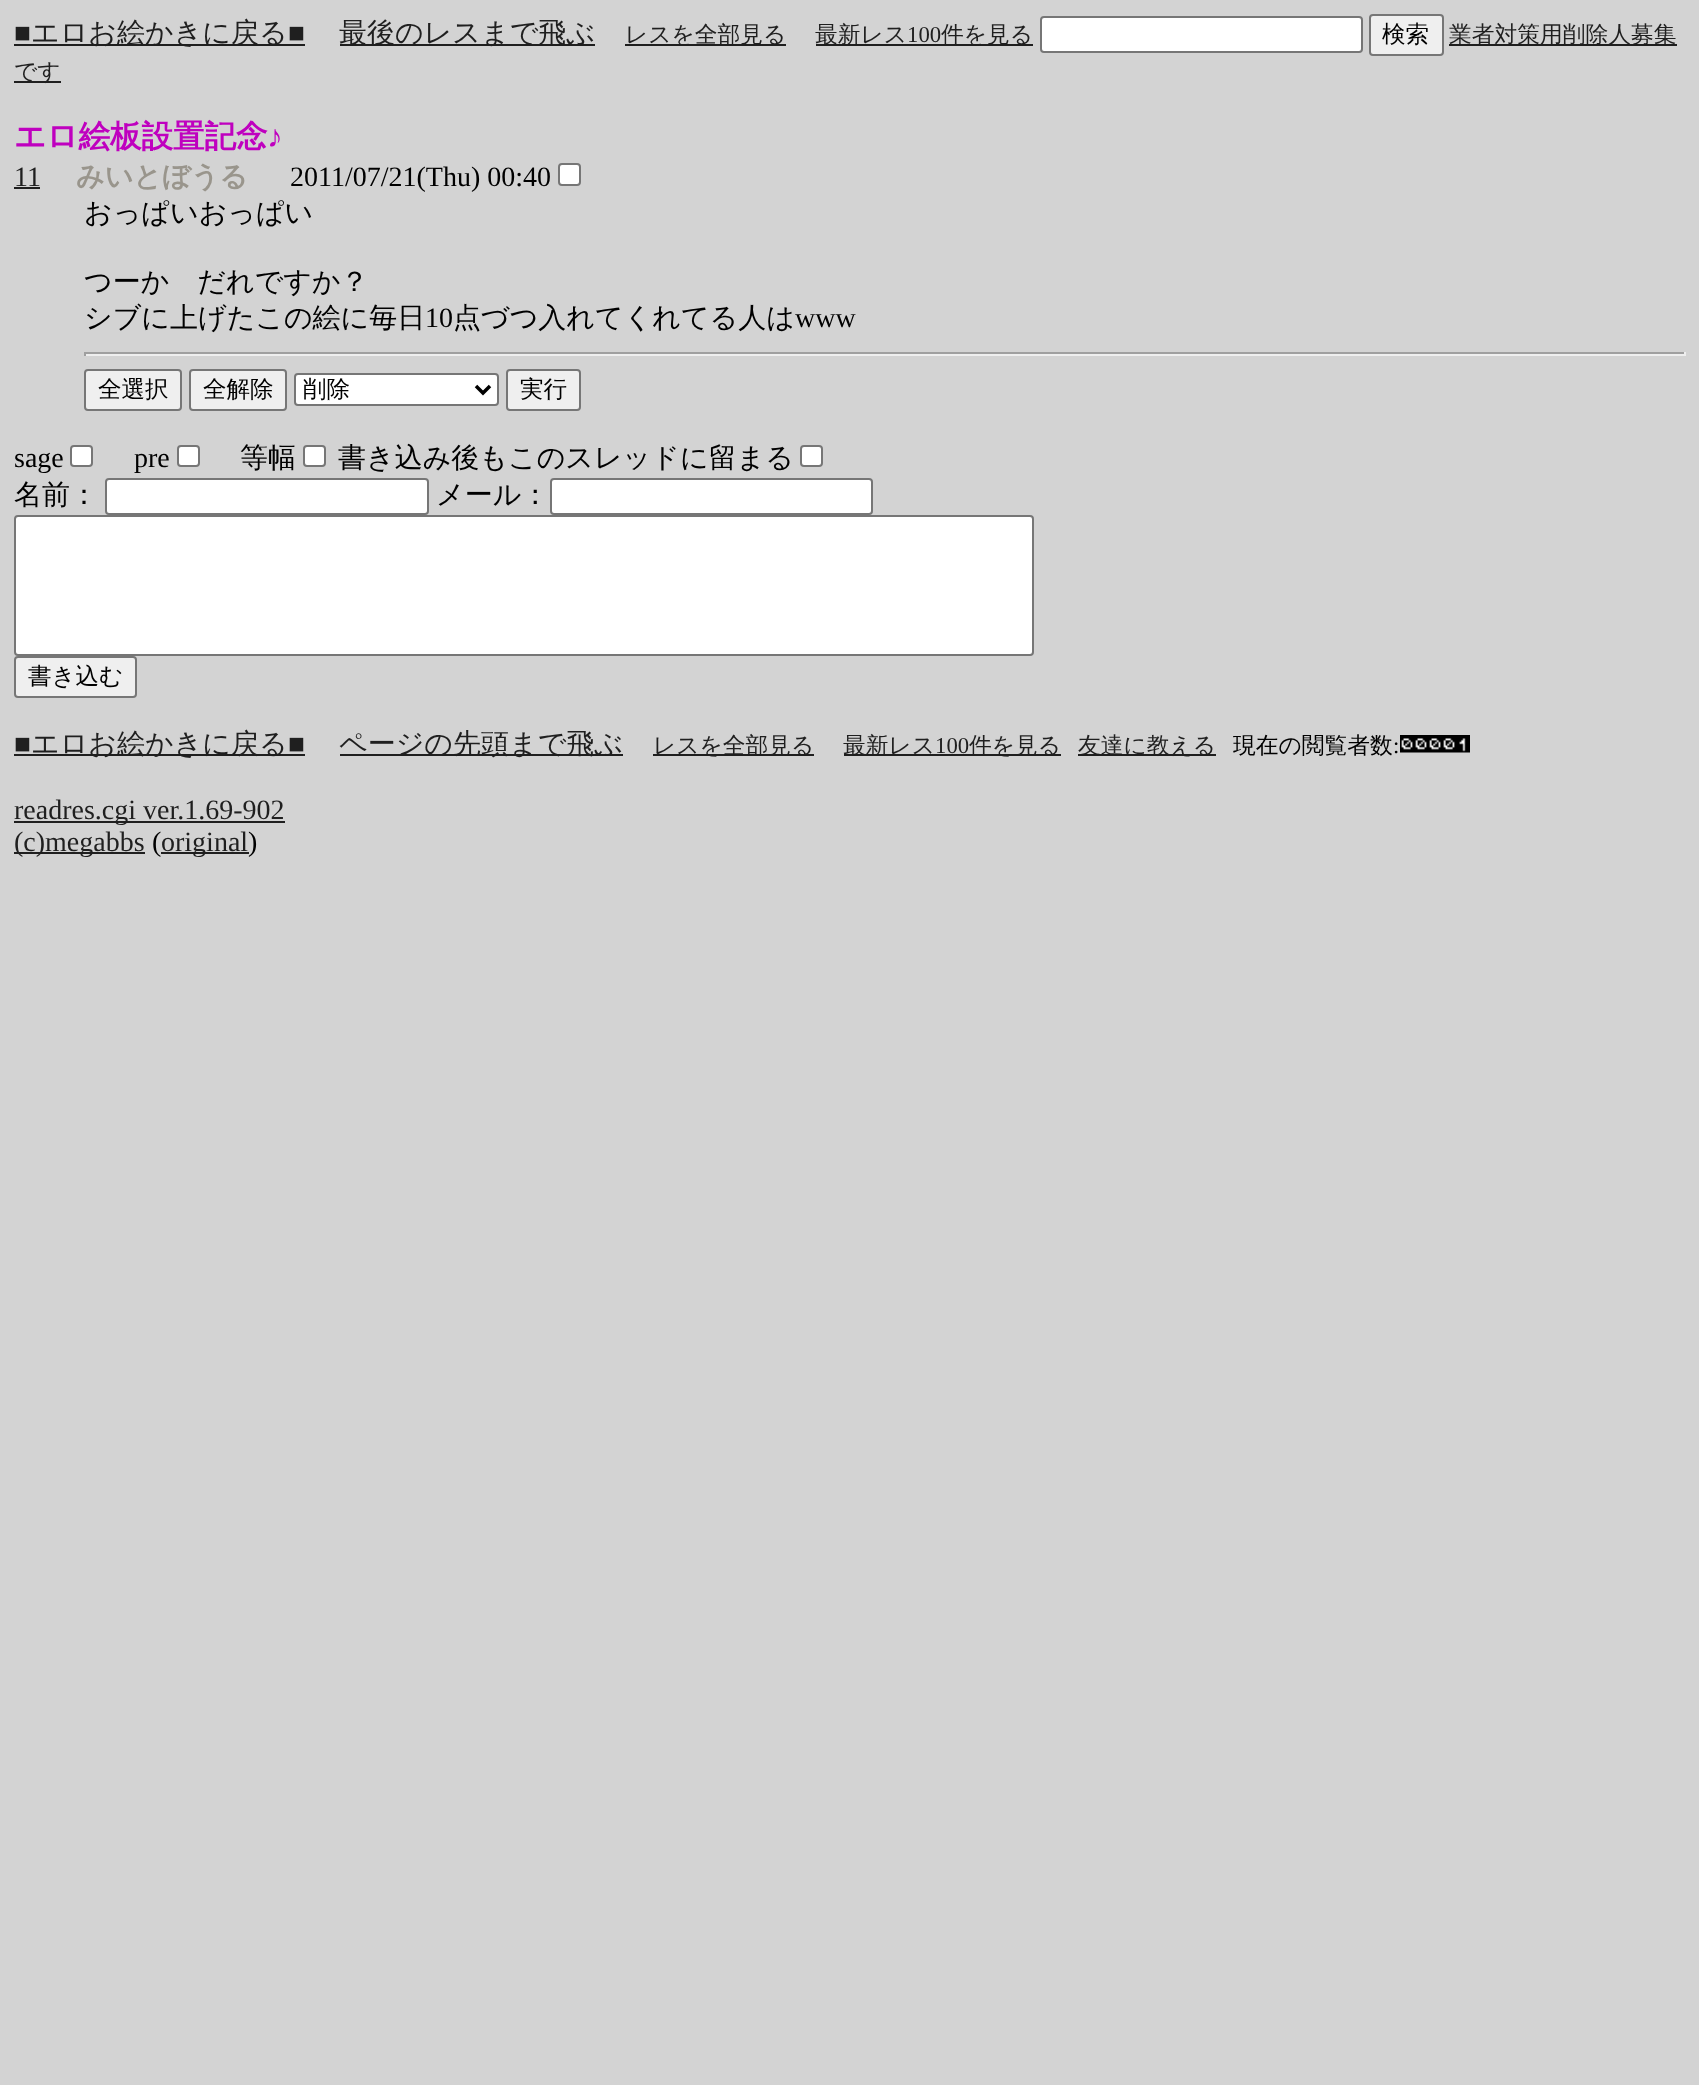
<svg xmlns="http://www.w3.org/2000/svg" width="1699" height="2085">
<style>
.a{font:500 28px WenQuanYi Zen Hei;fill:#1f1f1f}
.b{font:500 22.75px WenQuanYi Zen Hei;fill:#1f1f1f}
.c{font:22.75px Liberation Serif;fill:#1f1f1f}
.d{font:500 23.5px WenQuanYi Zen Hei;fill:#000}
.e{font:28px Liberation Serif;fill:#1f1f1f}
.f{font:bold 31.5px WenQuanYi Zen Hei;fill:#bf00bf}
.g{font:bold 31.5px Liberation Serif;fill:#bf00bf}
.h{font:bold 28px WenQuanYi Zen Hei;fill:#99958c}
.i{font:28px Liberation Serif;fill:#000}
.j{font:500 28px WenQuanYi Zen Hei;fill:#000}
.k{font:500 22.75px WenQuanYi Zen Hei;fill:#000}
.l{font:22.75px Liberation Serif;fill:#000}
</style>
<rect width="100%" height="100%" fill="#d3d3d3"/>
<path fill="#1f1f1f" d="M340 44h255v2H340z"/>
<path fill="#1f1f1f" d="M625 44h161v2H625z"/>
<path fill="#1f1f1f" d="M816 44h217v2H816z"/>
<rect fill="#fff" stroke="#767676" stroke-width="2" x="1041" y="17" width="321" height="35" rx="3"/>
<rect fill="#efefef" stroke="#767676" stroke-width="2" x="1370" y="15" width="73" height="40" rx="3"/>
<path fill="#1f1f1f" d="M1449 44h228v2H1449z"/>
<path fill="#1f1f1f" d="M14 81h47v2H14z"/>
<path fill="#1f1f1f" d="M14 44h291v2H14z"/>
<path fill="#1f1f1f" d="M14 187h26v2H14z"/>
<rect fill="#fff" stroke="#767676" stroke-width="2" x="559" y="164" width="21" height="21" rx="3"/>
<path fill="#9f9f9f" d="M84 352h1601v2H84z"/>
<path fill="#eee" d="M1684 352h2v4H1684z"/>
<path fill="#eee" d="M84 354h1601v2H84z"/>
<path fill="#9f9f9f" d="M84 352h2v4H84z"/>
<rect fill="#efefef" stroke="#767676" stroke-width="2" x="85" y="370" width="96" height="40" rx="3"/>
<rect fill="#efefef" stroke="#767676" stroke-width="2" x="190" y="370" width="96" height="40" rx="3"/>
<rect fill="#fff" stroke="#767676" stroke-width="2" x="295" y="374" width="203" height="31" rx="3"/>
<path fill="none" stroke="#000" stroke-width="3.5" d="M476 386l7 7l7-7"/>
<rect fill="#efefef" stroke="#767676" stroke-width="2" x="507" y="370" width="73" height="40" rx="3"/>
<rect fill="#fff" stroke="#767676" stroke-width="2" x="71" y="446" width="21" height="20" rx="3"/>
<rect fill="#fff" stroke="#767676" stroke-width="2" x="178" y="446" width="21" height="20" rx="3"/>
<rect fill="#fff" stroke="#767676" stroke-width="2" x="304" y="446" width="21" height="20" rx="3"/>
<rect fill="#fff" stroke="#767676" stroke-width="2" x="801" y="446" width="21" height="20" rx="3"/>
<rect fill="#fff" stroke="#767676" stroke-width="2" x="106" y="479" width="322" height="35" rx="3"/>
<rect fill="#fff" stroke="#767676" stroke-width="2" x="551" y="479" width="321" height="35" rx="3"/>
<rect fill="#fff" stroke="#767676" stroke-width="2" x="15" y="516" width="1018" height="139" rx="3"/>
<rect fill="#efefef" stroke="#767676" stroke-width="2" x="15" y="657" width="121" height="40" rx="3"/>
<path fill="#1f1f1f" d="M14 754h291v2H14z"/>
<path fill="#1f1f1f" d="M340 754h283v2H340z"/>
<path fill="#1f1f1f" d="M653 754h161v2H653z"/>
<path fill="#1f1f1f" d="M844 754h217v2H844z"/>
<path fill="#1f1f1f" d="M1078 754h138v2H1078z"/>
<image href="1.png" x="1400" y="735" width="14" height="18"/>
<image href="1.png" x="1414" y="735" width="14" height="18"/>
<image href="1.png" x="1428" y="735" width="14" height="18"/>
<image href="1.png" x="1442" y="735" width="14" height="18"/>
<image href="2.png" x="1456" y="735" width="14" height="18"/>
<path fill="#1f1f1f" d="M14 821h271v2H14z"/>
<path fill="#1f1f1f" d="M14 852h131v2H14z"/>
<path fill="#1f1f1f" d="M161 852h88v2H161z"/>
<text class="a" x="31" y="42">エロお絵かきに戻る</text>
<text class="a" x="339" y="42">最後のレスまで飛ぶ</text>
<text class="b" x="625" y="42">レスを全部見る</text>
<text class="b" x="815" y="42">最新レス</text>
<text class="c" x="907" y="42">100</text>
<text class="b" x="941" y="42">件を見る</text>
<text class="d" x="1382" y="42">検索</text>
<text class="b" x="1449" y="42">業者対策用削除人募集</text>
<text class="b" x="14" y="79">です</text>
<text class="e" x="14" y="42">■</text>
<text class="e" x="288" y="42">■</text>
<text class="f" x="14" y="147">エロ絵板設置記念</text>
<text class="g" x="267" y="147">♪</text>
<text class="e" x="14" y="186">11</text>
<text class="h" x="76" y="186">みいとぼうる</text>
<text class="i" x="290" y="186">2011/07/21(Thu) 00:40</text>
<text class="j" x="84" y="222">おっぱいおっぱい</text>
<text class="j" x="84" y="291">つーか　だれですか？</text>
<text class="j" x="84" y="327">シブに上げたこの絵に毎日</text>
<text class="i" x="425" y="327">10</text>
<text class="j" x="453" y="327">点づつ入れてくれてる人は</text>
<text class="i" x="795" y="327">www</text>
<text class="d" x="98" y="397">全選択</text>
<text class="d" x="203" y="397">全解除</text>
<text class="d" x="303" y="397">削除</text>
<text class="d" x="520" y="397">実行</text>
<text class="i" x="14" y="467">sage</text>
<text class="i" x="134" y="467">pre</text>
<text class="j" x="240" y="467">等幅</text>
<text class="j" x="338" y="467">書き込み後もこのスレッドに留まる</text>
<text class="j" x="14" y="504">名前：</text>
<text class="j" x="436" y="504">メール：</text>
<text class="d" x="28" y="684">書き込む</text>
<text class="e" x="14" y="753">■</text>
<text class="a" x="31" y="753">エロお絵かきに戻る</text>
<text class="e" x="288" y="753">■</text>
<text class="a" x="339" y="753">ページの先頭まで飛ぶ</text>
<text class="b" x="653" y="753">レスを全部見る</text>
<text class="b" x="843" y="753">最新レス</text>
<text class="c" x="935" y="753">100</text>
<text class="b" x="969" y="753">件を見る</text>
<text class="b" x="1078" y="753">友達に教える</text>
<text class="k" x="1233" y="753">現在の閲覧者数</text>
<text class="l" x="1393" y="753">:</text>
<text class="e" x="14" y="819">readres.cgi ver.1.69-902</text>
<text class="e" x="14" y="851">(c)megabbs</text>
<text class="i" x="152" y="851">(</text>
<text class="e" x="161" y="851">original</text>
<text class="i" x="248" y="851">)</text>
</svg>
